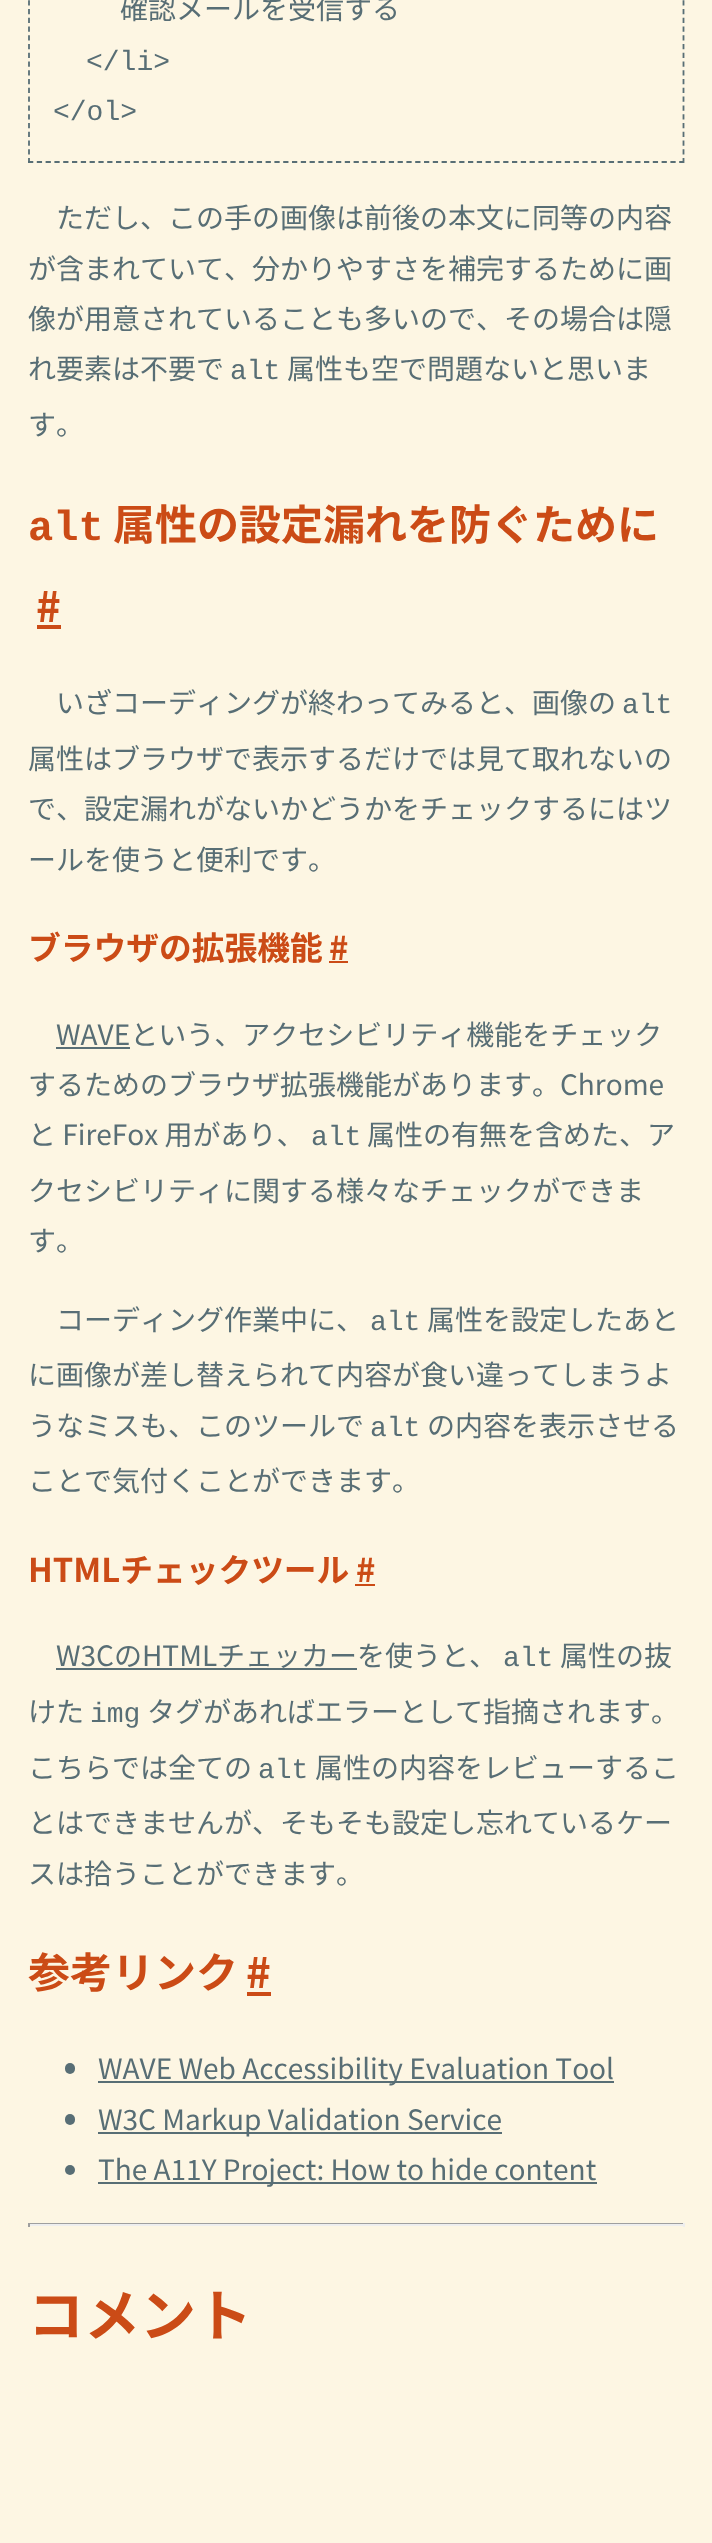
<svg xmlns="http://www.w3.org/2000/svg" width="712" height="2543">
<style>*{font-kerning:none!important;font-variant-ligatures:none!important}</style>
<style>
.a{font:28px Noto Sans JP;fill:#586e75}
.b{font:28px Liberation Mono;fill:#586e75}
.c{font:bold 42px Liberation Mono;fill:#cb4b16}
.d{font:bold 42px Noto Sans JP;fill:#cb4b16}
.e{font:bold 32.75px Noto Sans JP;fill:#cb4b16}
.f{font:bold 56px Noto Sans JP;fill:#cb4b16}
</style>
<rect width="100%" height="100%" fill="#fdf6e3"/>
<path fill="none" stroke="#586e75" stroke-width="1.8" stroke-dasharray="5.25 3.52" d="M683.5-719v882"/>
<path fill="none" stroke="#586e75" stroke-width="1.8" stroke-dasharray="5.25 3.55" d="M28 162h656"/>
<path fill="none" stroke="#586e75" stroke-width="1.8" stroke-dasharray="5.25 3.52" d="M29-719v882"/>
<path fill="#cb4b16" d="M37 625h24v4H37z"/>
<path fill="#cb4b16" d="M329 961h19v2H329z"/>
<path fill="#586e75" d="M56 1047h74v2H56z"/>
<path fill="#cb4b16" d="M355 1584h20v2H355z"/>
<path fill="#586e75" d="M56 1668h301v2H56z"/>
<path fill="#cb4b16" d="M247 1992h24v4H247z"/>
<rect fill="#586e75" x="65" y="2063" width="10" height="11" rx="5"/>
<path fill="#586e75" d="M98 2081h516v2H98z"/>
<rect fill="#586e75" x="65" y="2114" width="10" height="11" rx="5"/>
<path fill="#586e75" d="M98 2132h404v2H98z"/>
<circle fill="#586e75" cx="70" cy="2170" r="5"/>
<path fill="#586e75" d="M98 2182h499v2H98z"/>
<path fill="#9f9f9f" d="M28 2223h656v1H28z"/>
<path fill="#eee" d="M683 2223h2v4H683z"/>
<path fill="#eee" d="M28 2224h656v2H28z"/>
<path fill="#9f9f9f" d="M28 2223h2v4H28z"/>
<text class="a" x="120" y="19">確認メールを受信する</text>
<text class="b" x="86" y="70">&lt;/li&gt;</text>
<text class="b" x="53" y="120">&lt;/ol&gt;</text>
<text class="a" x="56" y="228">ただし、この手の画像は前後の本文に同等の内容</text>
<text class="a" x="28" y="279">が含まれていて、分かりやすさを補完するために画</text>
<text class="a" x="28" y="329">像が用意されていることも多いので、その場合は隠</text>
<text class="a" x="28" y="379">れ要素は不要で</text>
<text class="b" x="230" y="379">alt</text>
<text class="a" x="287" y="379">属性も空で問題ないと思いま</text>
<text class="a" x="28" y="435">す。</text>
<text class="c" x="28" y="540">alt</text>
<text class="d" x="113" y="540">属性の設定漏れを防ぐために</text>
<text class="d" x="36" y="622">#</text>
<text class="a" x="56" y="713">いざコーディングが終わってみると、画像の</text>
<text class="b" x="622" y="713">alt</text>
<text class="a" x="28" y="769">属性はブラウザで表示するだけでは見て取れないの</text>
<text class="a" x="28" y="819">で、設定漏れがないかどうかをチェックするにはツ</text>
<text class="a" x="28" y="870">ールを使うと便利です。</text>
<text class="e" x="28" y="960">ブラウザの拡張機能</text>
<text class="e" x="329" y="960">#</text>
<text class="a" x="56" y="1045">WAVEという、アクセシビリティ機能をチェック</text>
<text class="a" x="28" y="1095">するためのブラウザ拡張機能があります。Chrome</text>
<text class="a" x="28" y="1145">と FireFox 用があり、</text>
<text class="b" x="311" y="1145">alt</text>
<text class="a" x="367" y="1145">属性の有無を含めた、ア</text>
<text class="a" x="28" y="1201">クセシビリティに関する様々なチェックができま</text>
<text class="a" x="28" y="1251">す。</text>
<text class="a" x="56" y="1330">コーディング作業中に、</text>
<text class="b" x="370" y="1330">alt</text>
<text class="a" x="427" y="1330">属性を設定したあと</text>
<text class="a" x="28" y="1385">に画像が差し替えられて内容が食い違ってしまうよ</text>
<text class="a" x="28" y="1436">うなミスも、このツールで</text>
<text class="b" x="370" y="1436">alt</text>
<text class="a" x="427" y="1436">の内容を表示させる</text>
<text class="a" x="28" y="1491">ことで気付くことができます。</text>
<text class="e" x="28" y="1582">HTMLチェックツール</text>
<text class="e" x="356" y="1582">#</text>
<text class="a" x="56" y="1666">W3CのHTMLチェッカーを使うと、</text>
<text class="b" x="503" y="1666">alt</text>
<text class="a" x="560" y="1666">属性の抜</text>
<text class="a" x="28" y="1722">けた</text>
<text class="b" x="90" y="1722">img</text>
<text class="a" x="147" y="1722">タグがあればエラーとして指摘されます。</text>
<text class="a" x="28" y="1778">こちらでは全ての</text>
<text class="b" x="258" y="1778">alt</text>
<text class="a" x="315" y="1778">属性の内容をレビューするこ</text>
<text class="a" x="28" y="1833">とはできませんが、そもそも設定し忘れているケー</text>
<text class="a" x="28" y="1884">スは拾うことができます。</text>
<text class="d" x="28" y="1988">参考リンク</text>
<text class="d" x="246" y="1988">#</text>
<text class="a" x="98" y="2079">WAVE Web Accessibility Evaluation Tool</text>
<text class="a" x="98" y="2130">W3C Markup Validation Service</text>
<text class="a" x="98" y="2180">The A11Y Project: How to hide content</text>
<text class="f" x="28" y="2336">コメント</text>
</svg>
